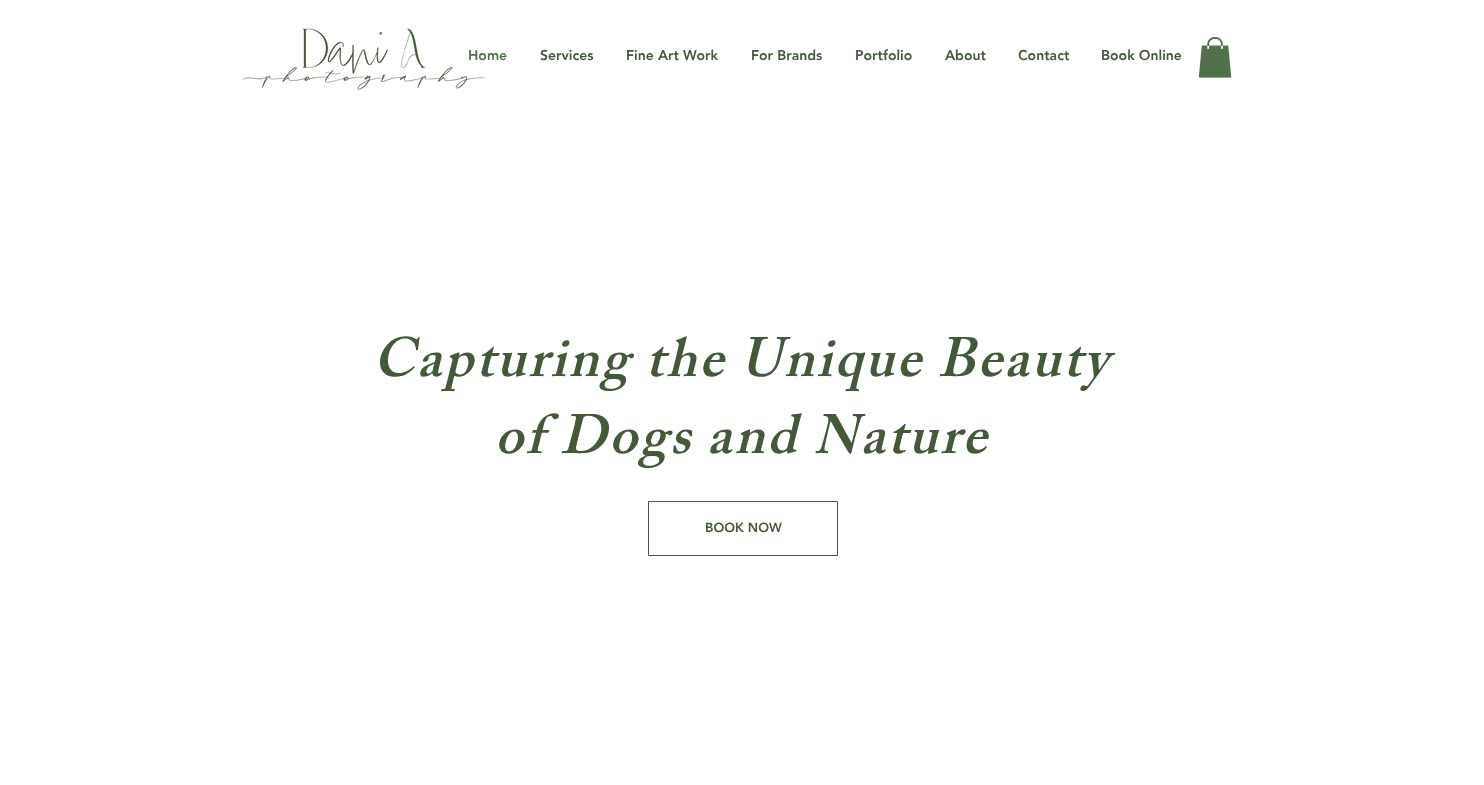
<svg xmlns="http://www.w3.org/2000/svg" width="1484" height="785">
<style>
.a{font:900 14px 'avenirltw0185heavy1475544';fill:#51714b}
.b{font:900 14px 'avenirltw0185heavy1475544';fill:#44593a}
.c{font:italic 600 55px 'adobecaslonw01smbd';letter-spacing:2.75px;fill:#44593a}
.d{font:900 13px 'avenirltw0185heavy1475544';fill:#44593a}
</style>
<rect width="100%" height="100%" fill="#fff"/>
<image href="1.png" x="242" y="28" width="243" height="62"/>
<image href="2.png" x="1198" y="37" width="34" height="41"/>
<path fill="none" stroke="#44593a" d="M648.5 501.5h189v54H648.5z"/>
<text class="a" x="468" y="60">Home</text>
<text class="b" x="540" y="60">Services</text>
<text class="b" x="626" y="60">Fine Art Work</text>
<text class="b" x="751" y="60">For Brands</text>
<text class="b" x="855" y="60">Portfolio</text>
<text class="b" x="945" y="60">About</text>
<text class="b" x="1018" y="60">Contact</text>
<text class="b" x="1101" y="60">Book Online</text>
<text class="c" x="373" y="376">Capturing the Unique Beauty</text>
<text class="c" x="495" y="453">of Dogs and Nature</text>
<text class="d" x="705" y="532">BOOK NOW</text>
</svg>
